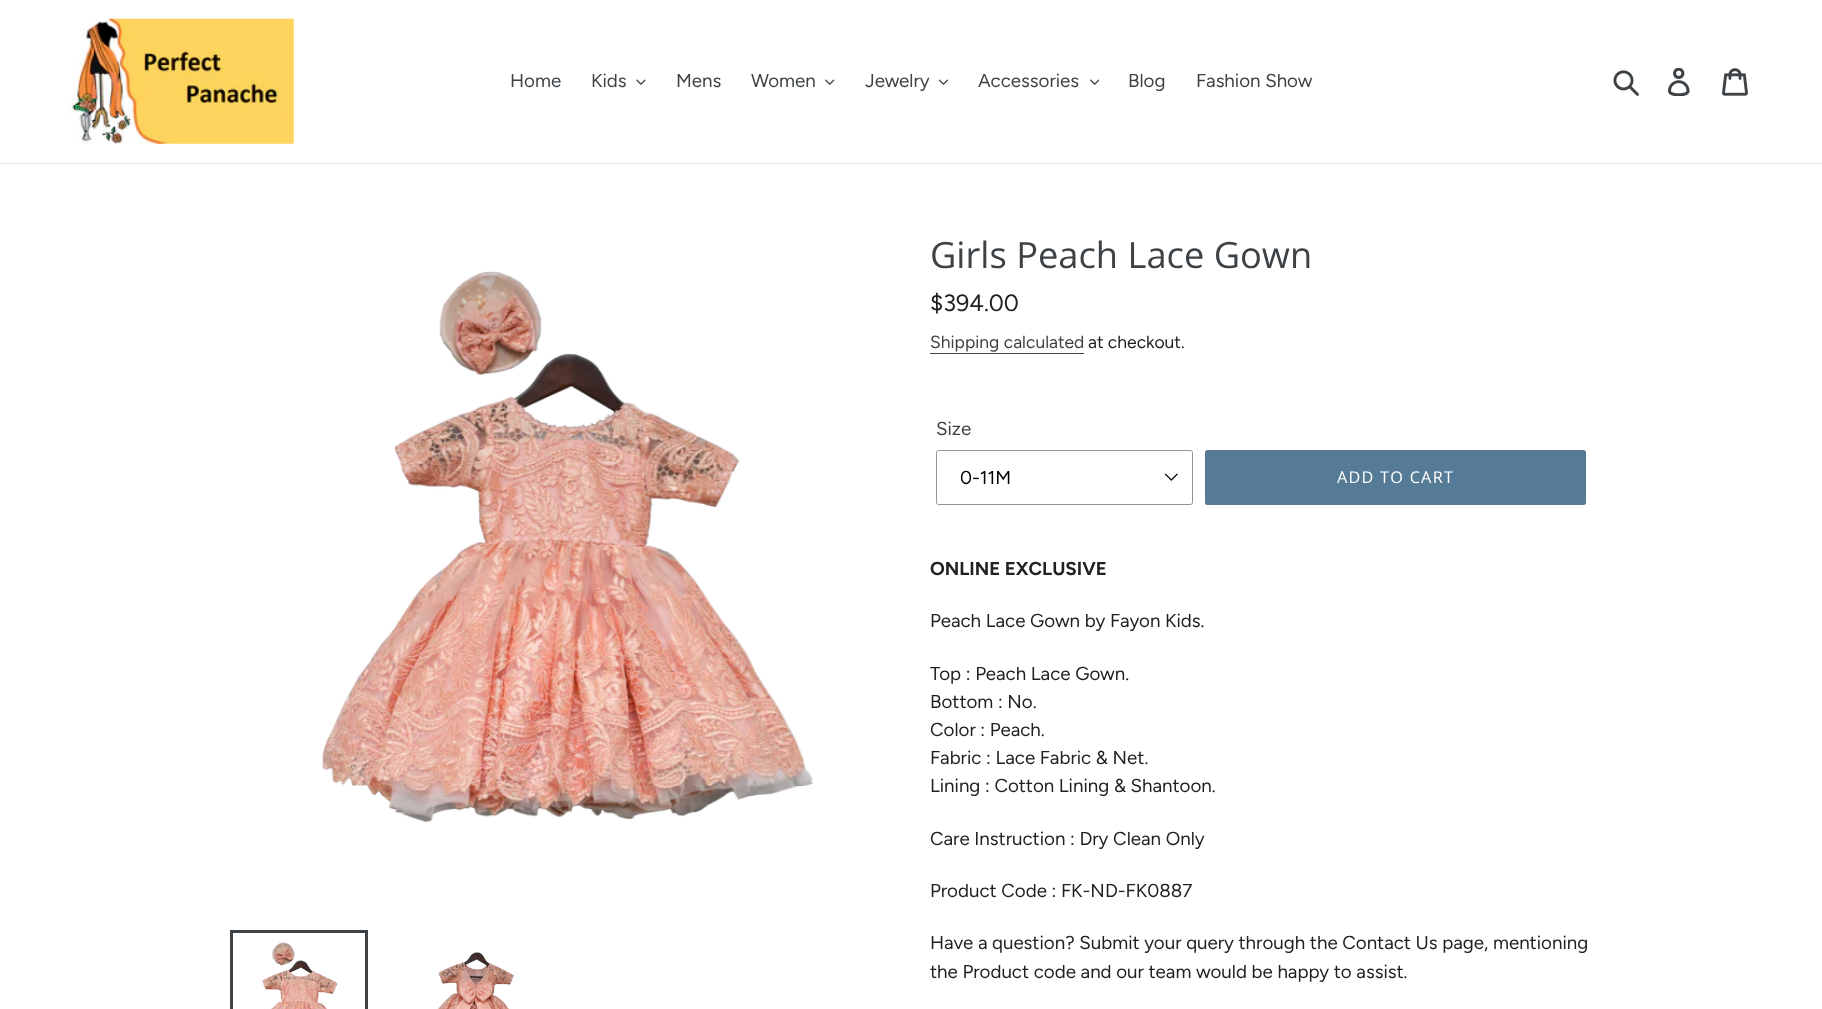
<svg xmlns="http://www.w3.org/2000/svg" width="1822" height="1009">
<style>
.a{font:18.75px Figtree;fill:#3d4246}
.b{font:36.25px Open Sans;fill:#3d4246}
.c{font:23.5px Figtree;fill:#202124}
.d{font:17.5px Figtree;fill:#3d4246}
.e{font:17.5px Figtree;fill:#202124}
.f{font:18.75px Figtree;fill:#000}
.g{font:16.25px Open Sans;letter-spacing:1.25px;fill:#fff}
.h{font:bold 18.75px Figtree;fill:#202124}
.i{font:18.75px Figtree;fill:#202124}
</style>
<rect width="100%" height="100%" fill="#fff"/>
<path fill="#e8e9eb" d="M0 163h1822v1H0z"/>
<image href="1.png" x="69" y="18" width="225" height="126"/>
<image href="2.png" x="636" y="79" width="10" height="6"/>
<image href="3.png" x="825" y="79" width="10" height="6"/>
<image href="4.png" x="939" y="79" width="10" height="6"/>
<image href="5.png" x="1090" y="79" width="9" height="6"/>
<image href="6.png" x="1613" y="70" width="26" height="26"/>
<image href="7.png" x="1668" y="68" width="22" height="28"/>
<image href="8.png" x="1722" y="68" width="26" height="28"/>
<image href="9.png" x="322" y="271" width="492" height="552"/>
<path fill="none" stroke="#3d4246" stroke-width="3" d="M231.5 931.5h135v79H231.5z"/>
<image href="10.png" x="262" y="942" width="76" height="67"/>
<image href="11.png" x="438" y="952" width="76" height="57"/>
<path fill="#3d4246" d="M930 353h154v1H930z"/>
<image href="12.png" x="1164" y="473" width="14" height="8"/>
<rect fill="none" stroke="#949494" x="936.5" y="450.5" width="256" height="54" rx="2"/>
<rect fill="#557b97" x="1205" y="450" width="381" height="55" rx="2.5"/>
<text class="a" x="510" y="87">Home</text>
<text class="a" x="591" y="87">Kids</text>
<text class="a" x="676" y="87">Mens</text>
<text class="a" x="751" y="87">Women</text>
<text class="a" x="865" y="87">Jewelry</text>
<text class="a" x="978" y="87">Accessories</text>
<text class="a" x="1128" y="87">Blog</text>
<text class="a" x="1196" y="87">Fashion Show</text>
<text class="b" x="930" y="268">Girls Peach Lace Gown</text>
<text class="c" x="930" y="311">$394.00</text>
<text class="d" x="930" y="348">Shipping calculated</text>
<text class="e" x="1088" y="348">at checkout.</text>
<text class="a" x="936" y="435">Size</text>
<text class="f" x="960" y="484">0-11M</text>
<text class="g" x="1337" y="483">ADD TO CART</text>
<text class="h" x="930" y="575">ONLINE EXCLUSIVE</text>
<text class="i" x="930" y="627">Peach Lace Gown by Fayon Kids.</text>
<text class="i" x="930" y="680">Top : Peach Lace Gown.</text>
<text class="i" x="930" y="708">Bottom : No.</text>
<text class="i" x="930" y="736">Color : Peach.</text>
<text class="i" x="930" y="764">Fabric : Lace Fabric &amp; Net.</text>
<text class="i" x="930" y="792">Lining : Cotton Lining &amp; Shantoon.</text>
<text class="i" x="930" y="845">Care Instruction : Dry Clean Only</text>
<text class="i" x="930" y="897">Product Code : FK-ND-FK0887</text>
<text class="i" x="930" y="949">Have a question? Submit your query through the Contact Us page, mentioning</text>
<text class="i" x="930" y="978">the Product code and our team would be happy to assist.</text>
</svg>
